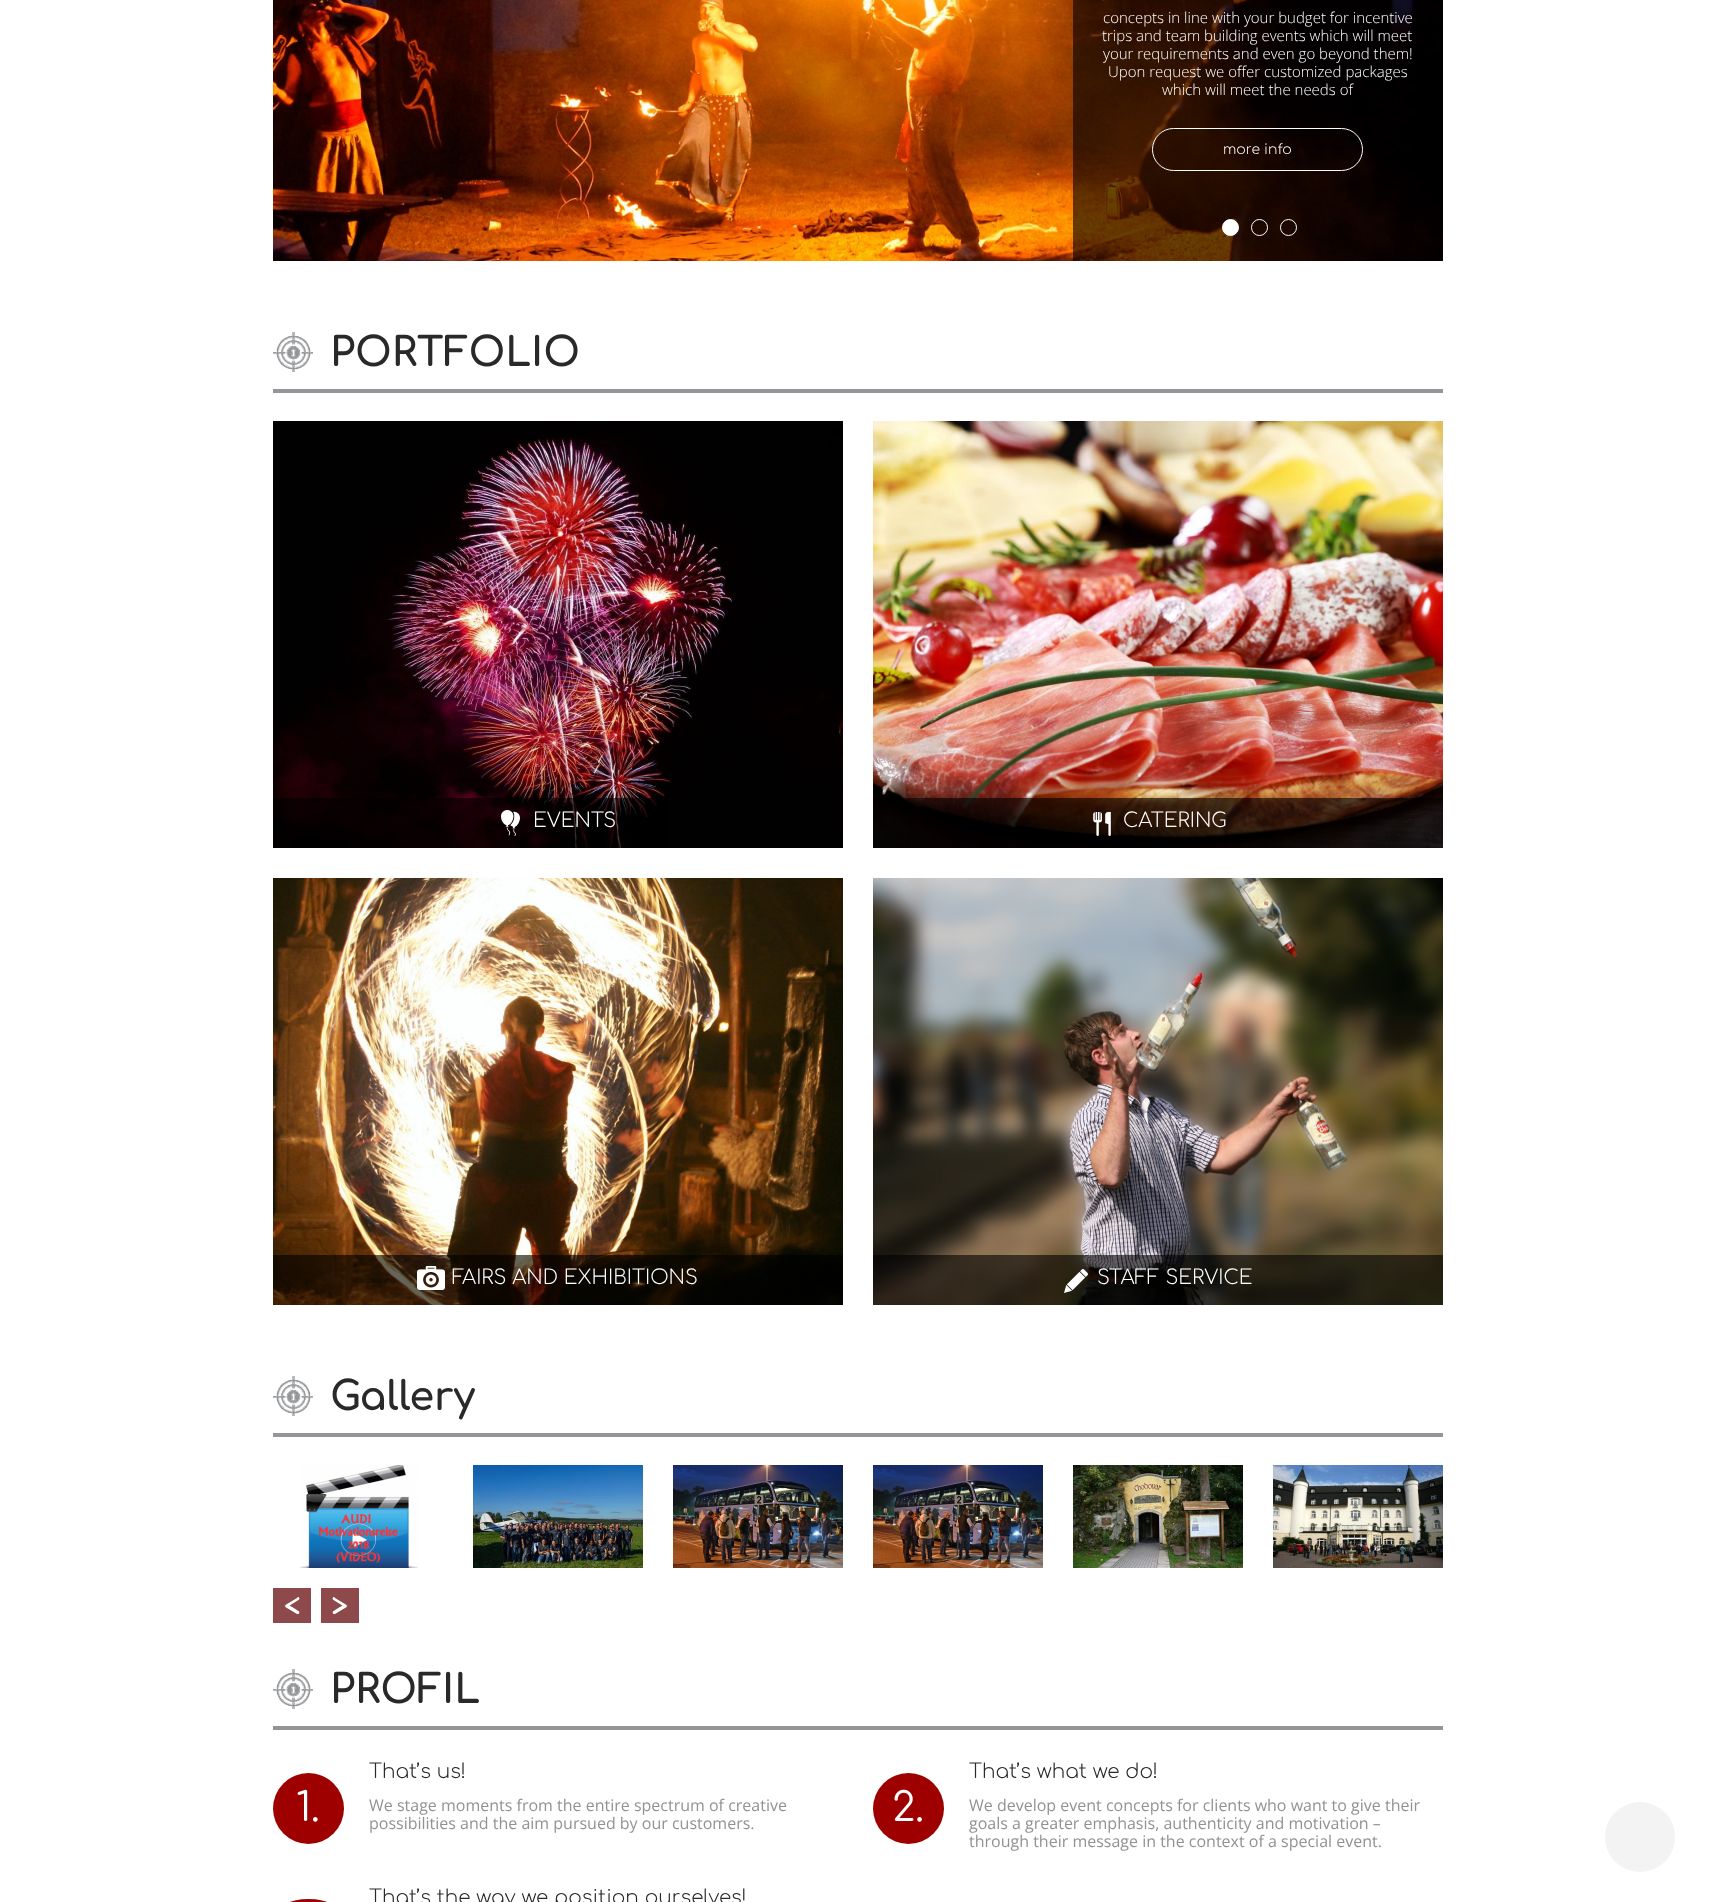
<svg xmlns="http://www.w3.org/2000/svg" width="1715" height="1902">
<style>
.a{font:300 15px Open Sans;fill:#fff}
.b{font:300 14px Comfortaa;fill:#fff}
.c{font:bold 40px Comfortaa;fill:#292929}
.d{font:300 20px Comfortaa;fill:#fff}
.e{font:40px Comfortaa;fill:#fff}
.f{font:300 20px Comfortaa;fill:#292929}
.g{font:16px Open Sans;fill:#929292}
</style>
<rect width="100%" height="100%" fill="#fff"/>
<image href="1.png" x="273" y="0" width="1170" height="261"/>
<path fill="#00000099" d="M1073 0h370v261H1073z"/>
<rect fill="none" stroke="#fff" x="1152.5" y="128.5" width="210" height="42" rx="21"/>
<circle fill="#fff" stroke="#fff" cx="1230.5" cy="227.5" r="8"/>
<circle fill="none" stroke="#fff" cx="1259.5" cy="227.5" r="8"/>
<circle fill="none" stroke="#fff" cx="1288.5" cy="227.5" r="8"/>
<path fill="#939598" d="M273 389h1170v4H273z"/>
<image href="2.png" x="273" y="332" width="40" height="40"/>
<image href="3.png" x="273" y="421" width="570" height="427"/>
<path fill="#00000099" d="M273 798h393v50H273z"/>
<image href="4.png" x="501" y="810" width="19" height="26"/>
<image href="5.png" x="873" y="421" width="570" height="427"/>
<path fill="#00000099" d="M873 798h570v50H873z"/>
<image href="6.png" x="1093" y="812" width="18" height="24"/>
<image href="7.png" x="273" y="878" width="570" height="427"/>
<path fill="#00000099" d="M273 1255h570v50H273z"/>
<image href="8.png" x="417" y="1266" width="28" height="24"/>
<image href="9.png" x="873" y="878" width="570" height="427"/>
<path fill="#00000099" d="M873 1255h570v50H873z"/>
<image href="10.png" x="1064" y="1269" width="24" height="24"/>
<path fill="#939598" d="M273 1433h1170v4H273z"/>
<image href="2.png" x="273" y="1376" width="40" height="40"/>
<image href="11.png" x="300" y="1465" width="118" height="103"/>
<image href="12.png" x="473" y="1465" width="170" height="103"/>
<image href="13.png" x="673" y="1465" width="170" height="103"/>
<image href="13.png" x="873" y="1465" width="170" height="103"/>
<image href="14.png" x="1073" y="1465" width="170" height="103"/>
<image href="15.png" x="1273" y="1465" width="170" height="103"/>
<path fill="#8e4a4a" d="M273 1588h38v35H273z"/>
<image href="16.png" x="285" y="1597" width="15" height="17"/>
<path fill="#8e4a4a" d="M321 1588h38v35H321z"/>
<image href="17.png" x="332" y="1597" width="15" height="17"/>
<path fill="#939598" d="M273 1726h1170v4H273z"/>
<image href="2.png" x="273" y="1669" width="40" height="40"/>
<circle fill="#9e0000" cx="308.5" cy="1808.5" r="35.5"/>
<circle fill="#9e0000" cx="908.5" cy="1808.5" r="35.5"/>
<rect fill="#9e0000" x="273" y="1899" width="71" height="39" rx="35.5"/>
<circle fill="#f3f3f3" cx="1640" cy="1837" r="35"/>
<text class="a" x="1103" y="23">concepts in line with your budget for incentive</text>
<text class="a" x="1102" y="41">trips and team building events which will meet</text>
<text class="a" x="1103" y="59">your requirements and even go beyond them!</text>
<text class="a" x="1108" y="77">Upon request we offer customized packages</text>
<text class="a" x="1162" y="95">which will meet the needs of</text>
<text class="b" x="1223" y="154">more info</text>
<text class="c" x="330" y="366">PORTFOLIO</text>
<text class="d" x="533" y="827">EVENTS</text>
<text class="d" x="1123" y="827">CATERING</text>
<text class="d" x="452" y="1284">FAIRS AND EXHIBITIONS</text>
<text class="d" x="1097" y="1284">STAFF SERVICE</text>
<text class="c" x="330" y="1410">Gallery</text>
<text class="c" x="330" y="1703">PROFIL</text>
<text class="e" x="296" y="1821">1.</text>
<text class="f" x="369" y="1778">That’s us!</text>
<text class="g" x="369" y="1811">We stage moments from the entire spectrum of creative</text>
<text class="g" x="369" y="1829">possibilities and the aim pursued by our customers.</text>
<text class="e" x="892" y="1821">2.</text>
<text class="f" x="969" y="1778">That’s what we do!</text>
<text class="g" x="969" y="1811">We develop event concepts for clients who want to give their</text>
<text class="g" x="969" y="1829">goals a greater emphasis, authenticity and motivation –</text>
<text class="g" x="969" y="1847">through their message in the context of a special event.</text>
<text class="f" x="369" y="1904">That’s the way we position ourselves!</text>
</svg>
